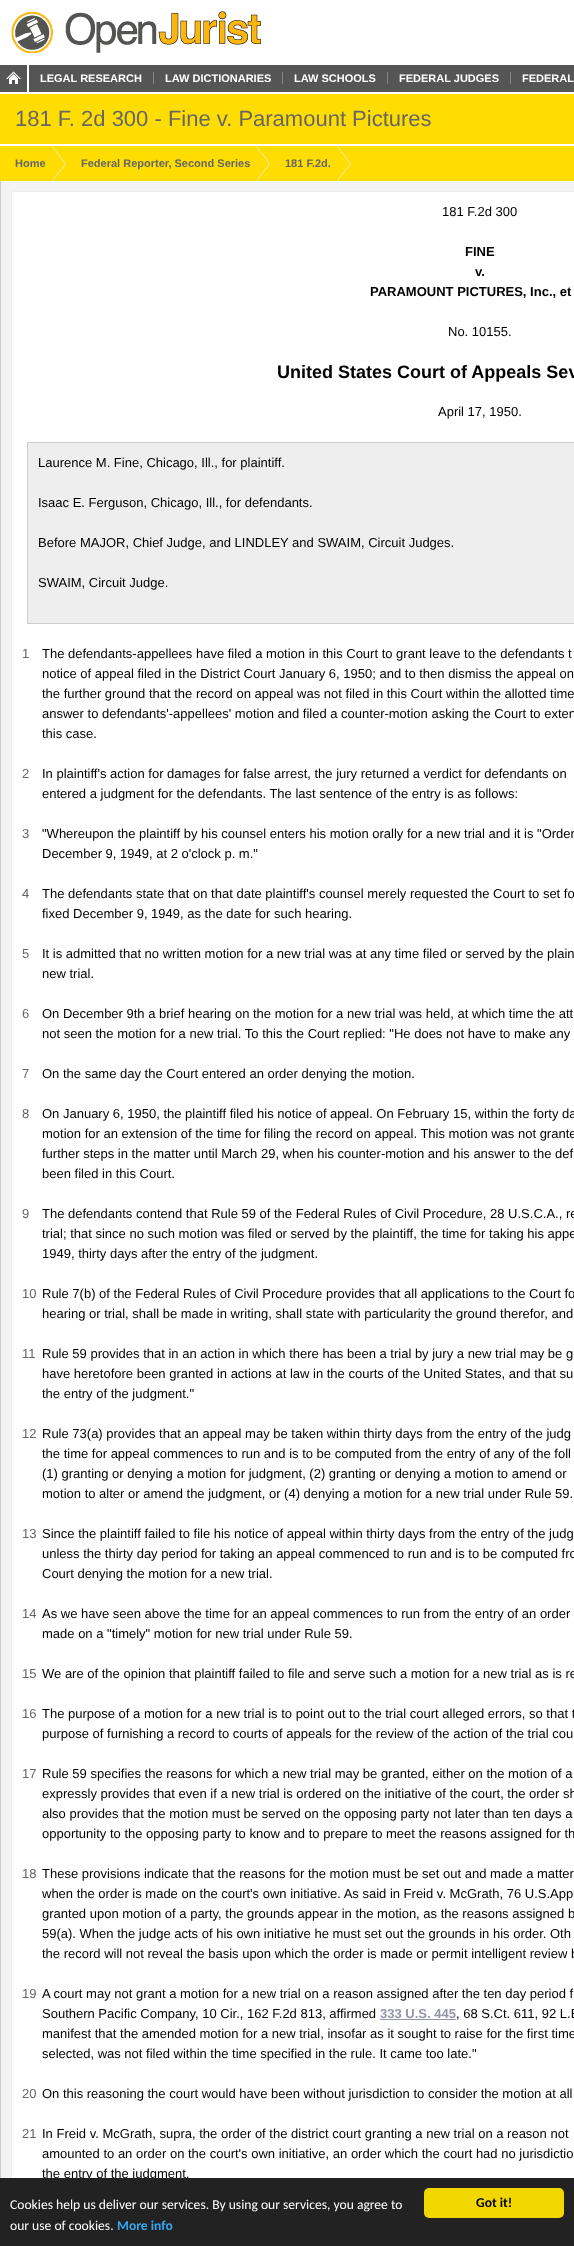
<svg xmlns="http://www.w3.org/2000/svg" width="574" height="2246">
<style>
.a{font:bold 11px Liberation Sans;fill:#fff}
.b{font:22px Liberation Sans;fill:#666}
.c{font:bold 11px Liberation Sans;fill:#666}
.d{font:13px Liberation Sans;fill:#000}
.e{font:bold 13px Liberation Sans;fill:#000}
.f{font:bold 18px Liberation Sans;fill:#000}
.g{font:13px Liberation Sans;fill:#666}
.h{font:bold 13px Liberation Sans;fill:#9495ab}
.i{font:13.6px Carlito;fill:#fff}
.j{font:bold 13.6px Carlito;fill:#31a8f0}
.k{font:bold 13.6px Carlito;fill:#000}
</style>
<rect width="100%" height="100%" fill="#fff"/>
<image href="1.png" x="11" y="11" width="250" height="42"/>
<path fill="#555" d="M0 65h574v27H0z"/>
<image href="2.png" x="6" y="71" width="15" height="13"/>
<path fill="#fff" d="M27 65h2v27H27z"/>
<path fill="#848884" d="M153 72h1v12H153z"/>
<path fill="#848884" d="M282 72h1v12H282z"/>
<path fill="#848884" d="M387 72h1v12H387z"/>
<path fill="#848884" d="M510 72h1v12H510z"/>
<path fill="#fd0" d="M0 94h574v50H0z"/>
<path fill="#fd0" d="M0 146h574v35H0z"/>
<image href="3.png" x="51" y="146" width="15" height="35"/>
<image href="4.png" x="256" y="146" width="14" height="35"/>
<image href="5.png" x="337" y="146" width="14" height="35"/>
<path fill="#f3f3f3" d="M1 181h573v1997H1z"/>
<path fill="#ccc" d="M0 181h1v1997H0z"/>
<path fill="#fff" d="M12 192h562v1986H12z"/>
<path fill="none" stroke="#eee" d="M11.5 191.5h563v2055H11.5z"/>
<path fill="#eee" stroke="#ccc" d="M27.5 442.5h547v181H27.5z"/>
<path fill="#9495ab" d="M380 2019h76v1H380z"/>
<text class="a" x="40" y="82">LEGAL RESEARCH</text>
<text class="a" x="165" y="82">LAW DICTIONARIES</text>
<text class="a" x="294" y="82">LAW SCHOOLS</text>
<text class="a" x="399" y="82">FEDERAL JUDGES</text>
<text class="a" x="522" y="82">FEDERAL</text>
<text class="b" x="15" y="126">181 F. 2d 300 - Fine v. Paramount Pictures</text>
<text class="c" x="15" y="167">Home</text>
<text class="c" x="81" y="167">Federal Reporter, Second Series</text>
<text class="c" x="285" y="167">181 F.2d.</text>
<text class="d" x="442" y="216">181 F.2d 300</text>
<text class="e" x="465" y="256">FINE</text>
<text class="e" x="475" y="276">v.</text>
<text class="e" x="370" y="296">PARAMOUNT PICTURES, Inc., et</text>
<text class="d" x="448" y="336">No. 10155.</text>
<text class="f" x="277" y="378">United States Court of Appeals Sev</text>
<text class="d" x="438" y="416">April 17, 1950.</text>
<text class="d" x="38" y="467">Laurence M. Fine, Chicago, Ill., for plaintiff.</text>
<text class="d" x="38" y="507">Isaac E. Ferguson, Chicago, Ill., for defendants.</text>
<text class="d" x="38" y="547">Before MAJOR, Chief Judge, and LINDLEY and SWAIM, Circuit Judges.</text>
<text class="d" x="38" y="587">SWAIM, Circuit Judge.</text>
<text class="g" x="22" y="658">1</text>
<text class="d" x="42" y="658">The defendants-appellees have filed a motion in this Court to grant leave to the defendants t</text>
<text class="d" x="42" y="678">notice of appeal filed in the District Court January 6, 1950; and to then dismiss the appeal on</text>
<text class="d" x="42" y="698">the further ground that the record on appeal was not filed in this Court within the allotted time</text>
<text class="d" x="42" y="718">answer to defendants'-appellees' motion and filed a counter-motion asking the Court to exten</text>
<text class="d" x="42" y="738">this case.</text>
<text class="g" x="22" y="778">2</text>
<text class="d" x="42" y="778">In plaintiff's action for damages for false arrest, the jury returned a verdict for defendants on</text>
<text class="d" x="42" y="798">entered a judgment for the defendants. The last sentence of the entry is as follows:</text>
<text class="g" x="22" y="838">3</text>
<text class="d" x="42" y="838">"Whereupon the plaintiff by his counsel enters his motion orally for a new trial and it is "Order</text>
<text class="d" x="42" y="858">December 9, 1949, at 2 o'clock p. m."</text>
<text class="g" x="22" y="898">4</text>
<text class="d" x="42" y="898">The defendants state that on that date plaintiff's counsel merely requested the Court to set fo</text>
<text class="d" x="42" y="918">fixed December 9, 1949, as the date for such hearing.</text>
<text class="g" x="22" y="958">5</text>
<text class="d" x="42" y="958">It is admitted that no written motion for a new trial was at any time filed or served by the plain</text>
<text class="d" x="42" y="978">new trial.</text>
<text class="g" x="22" y="1018">6</text>
<text class="d" x="42" y="1018">On December 9th a brief hearing on the motion for a new trial was held, at which time the att</text>
<text class="d" x="42" y="1038">not seen the motion for a new trial. To this the Court replied: "He does not have to make any</text>
<text class="g" x="22" y="1078">7</text>
<text class="d" x="42" y="1078">On the same day the Court entered an order denying the motion.</text>
<text class="g" x="22" y="1118">8</text>
<text class="d" x="42" y="1118">On January 6, 1950, the plaintiff filed his notice of appeal. On February 15, within the forty da</text>
<text class="d" x="42" y="1138">motion for an extension of the time for filing the record on appeal. This motion was not grante</text>
<text class="d" x="42" y="1158">further steps in the matter until March 29, when his counter-motion and his answer to the def</text>
<text class="d" x="42" y="1178">been filed in this Court.</text>
<text class="g" x="22" y="1218">9</text>
<text class="d" x="42" y="1218">The defendants contend that Rule 59 of the Federal Rules of Civil Procedure, 28 U.S.C.A., re</text>
<text class="d" x="42" y="1238">trial; that since no such motion was filed or served by the plaintiff, the time for taking his appe</text>
<text class="d" x="42" y="1258">1949, thirty days after the entry of the judgment.</text>
<text class="g" x="22" y="1298">10</text>
<text class="d" x="42" y="1298">Rule 7(b) of the Federal Rules of Civil Procedure provides that all applications to the Court fo</text>
<text class="d" x="42" y="1318">hearing or trial, shall be made in writing, shall state with particularity the ground therefor, and</text>
<text class="g" x="22" y="1358">11</text>
<text class="d" x="42" y="1358">Rule 59 provides that in an action in which there has been a trial by jury a new trial may be g</text>
<text class="d" x="42" y="1378">have heretofore been granted in actions at law in the courts of the United States, and that su</text>
<text class="d" x="42" y="1398">the entry of the judgment."</text>
<text class="g" x="22" y="1438">12</text>
<text class="d" x="42" y="1438">Rule 73(a) provides that an appeal may be taken within thirty days from the entry of the judg</text>
<text class="d" x="42" y="1458">the time for appeal commences to run and is to be computed from the entry of any of the foll</text>
<text class="d" x="42" y="1478">(1) granting or denying a motion for judgment, (2) granting or denying a motion to amend or</text>
<text class="d" x="42" y="1498">motion to alter or amend the judgment, or (4) denying a motion for a new trial under Rule 59.</text>
<text class="g" x="22" y="1538">13</text>
<text class="d" x="42" y="1538">Since the plaintiff failed to file his notice of appeal within thirty days from the entry of the judg</text>
<text class="d" x="42" y="1558">unless the thirty day period for taking an appeal commenced to run and is to be computed fro</text>
<text class="d" x="42" y="1578">Court denying the motion for a new trial.</text>
<text class="g" x="22" y="1618">14</text>
<text class="d" x="42" y="1618">As we have seen above the time for an appeal commences to run from the entry of an order</text>
<text class="d" x="42" y="1638">made on a "timely" motion for new trial under Rule 59.</text>
<text class="g" x="22" y="1678">15</text>
<text class="d" x="42" y="1678">We are of the opinion that plaintiff failed to file and serve such a motion for a new trial as is re</text>
<text class="g" x="22" y="1718">16</text>
<text class="d" x="42" y="1718">The purpose of a motion for a new trial is to point out to the trial court alleged errors, so that t</text>
<text class="d" x="42" y="1738">purpose of furnishing a record to courts of appeals for the review of the action of the trial cou</text>
<text class="g" x="22" y="1778">17</text>
<text class="d" x="42" y="1778">Rule 59 specifies the reasons for which a new trial may be granted, either on the motion of a</text>
<text class="d" x="42" y="1798">expressly provides that even if a new trial is ordered on the initiative of the court, the order sh</text>
<text class="d" x="42" y="1818">also provides that the motion must be served on the opposing party not later than ten days a</text>
<text class="d" x="42" y="1838">opportunity to the opposing party to know and to prepare to meet the reasons assigned for th</text>
<text class="g" x="22" y="1878">18</text>
<text class="d" x="42" y="1878">These provisions indicate that the reasons for the motion must be set out and made a matter</text>
<text class="d" x="42" y="1898">when the order is made on the court's own initiative. As said in Freid v. McGrath, 76 U.S.App</text>
<text class="d" x="42" y="1918">granted upon motion of a party, the grounds appear in the motion, as the reasons assigned b</text>
<text class="d" x="42" y="1938">59(a). When the judge acts of his own initiative he must set out the grounds in his order. Oth</text>
<text class="d" x="42" y="1958">the record will not reveal the basis upon which the order is made or permit intelligent review b</text>
<text class="g" x="22" y="1998">19</text>
<text class="d" x="42" y="1998">A court may not grant a motion for a new trial on a reason assigned after the ten day period f</text>
<text class="d" x="42" y="2018">Southern Pacific Company, 10 Cir., 162 F.2d 813, affirmed</text>
<text class="h" x="380" y="2018">333 U.S. 445</text>
<text class="d" x="456" y="2018">, 68 S.Ct. 611, 92 L.E</text>
<text class="d" x="42" y="2038">manifest that the amended motion for a new trial, insofar as it sought to raise for the first time</text>
<text class="d" x="42" y="2058">selected, was not filed within the time specified in the rule. It came too late."</text>
<text class="g" x="22" y="2098">20</text>
<text class="d" x="42" y="2098">On this reasoning the court would have been without jurisdiction to consider the motion at all</text>
<text class="g" x="22" y="2138">21</text>
<text class="d" x="42" y="2138">In Freid v. McGrath, supra, the order of the district court granting a new trial on a reason not</text>
<text class="d" x="42" y="2158">amounted to an order on the court's own initiative, an order which the court had no jurisdictio</text>
<text class="d" x="42" y="2178">the entry of the judgment.</text>
<path fill="#222" d="M0 2178h574v68H0z"/>
<text class="i" x="10" y="2209">Cookies help us deliver our services. By using our services, you agree to</text>
<text class="i" x="10" y="2230">our use of cookies.</text>
<text class="j" x="117" y="2230">More info</text>
<rect fill="#f1d600" x="424" y="2188" width="140" height="30" rx="5"/>
<text class="k" x="476" y="2207">Got it!</text>
</svg>
